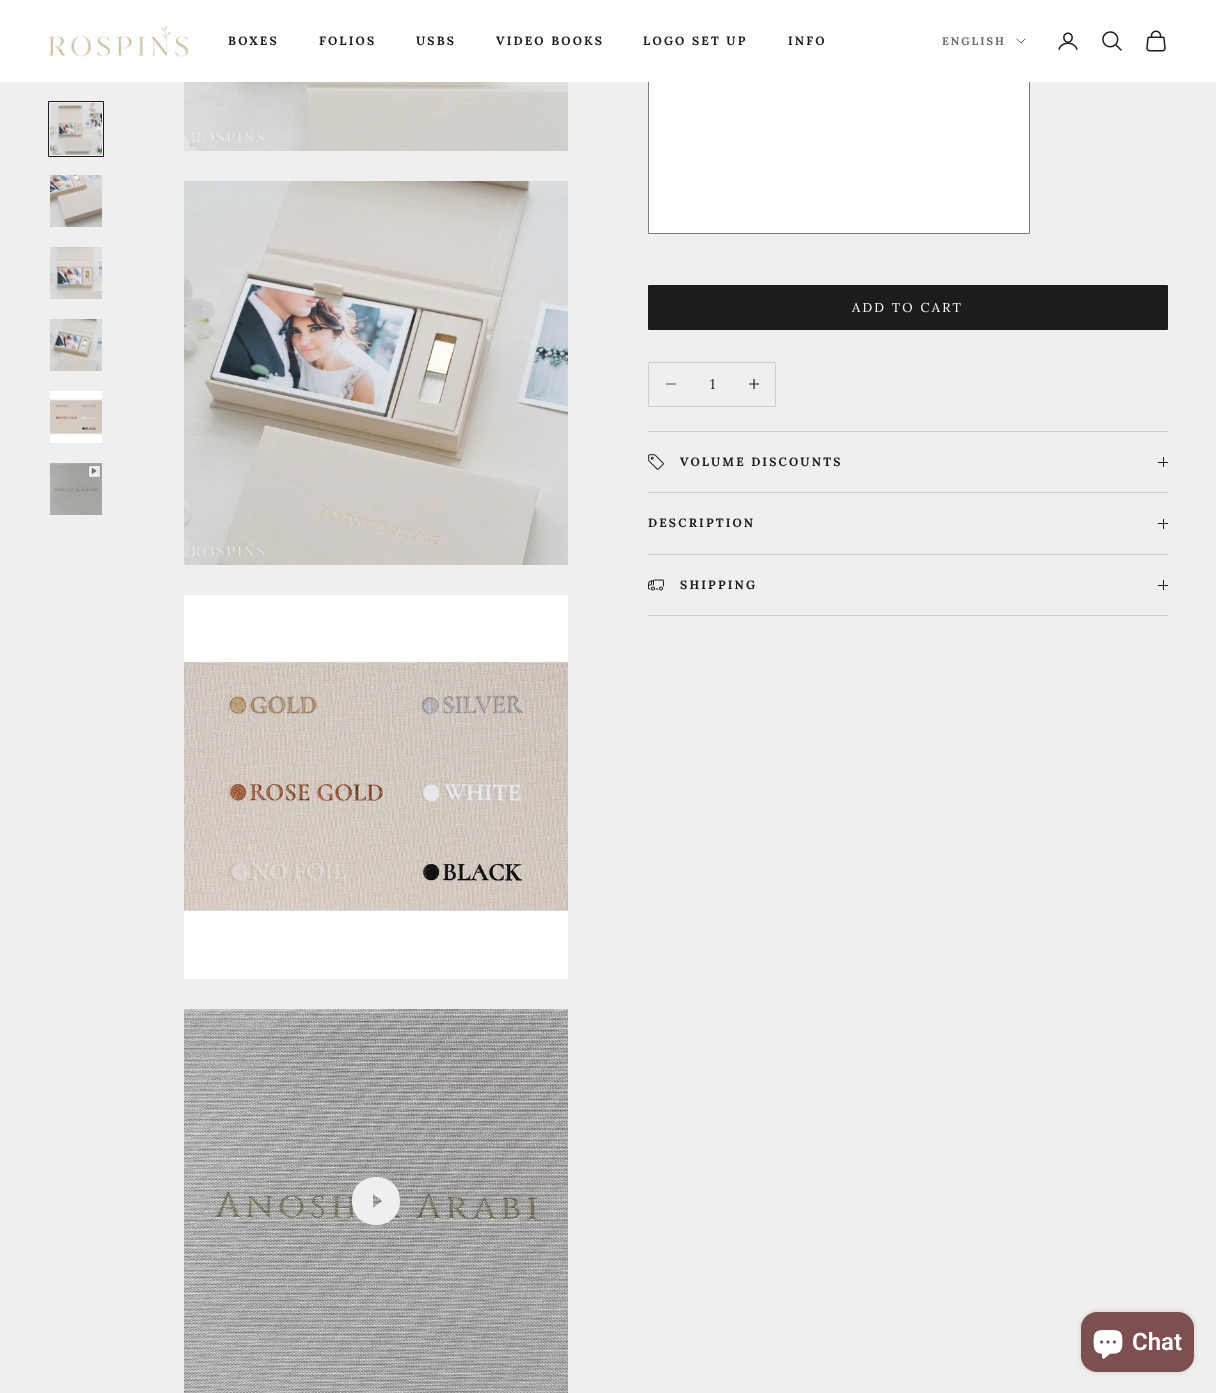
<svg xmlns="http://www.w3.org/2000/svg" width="1216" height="1393">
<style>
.a{font:bold 12px Lora;letter-spacing:2.2px;fill:#1c1c1c}
.b{font:bold 11px Lora;letter-spacing:2px;fill:#6b6b6b}
.c{font:13px Lora;letter-spacing:2.25px;fill:#fff}
.d{font:14px Lora;fill:#1c1c1c}
.e{font:600 24px Roboto;fill:#fff}
</style>
<rect width="100%" height="100%" fill="#efefef"/>
<path fill="#fff" d="M649 82h380v151H649z"/>
<path fill="none" stroke="#7d7d7d" d="M648.5 69.5h381v164H648.5z"/>
<path fill="#fff" d="M0 0h1216v82H0z"/>
<image href="1.png" x="48" y="26" width="140" height="31"/>
<path fill="none" stroke="#6b6b6b" stroke-linecap="square" d="M1017 39l4 4l4-4"/>
<image href="2.png" x="1058" y="32" width="20" height="18"/>
<image href="3.png" x="1102" y="31" width="20" height="20"/>
<image href="4.png" x="1146" y="30" width="20" height="22"/>
<path fill="none" stroke="#1c1c1c" d="M48.5 101.5h55v55H48.5z"/>
<image href="5.png" x="50" y="103" width="52" height="52"/>
<image href="6.png" x="50" y="175" width="52" height="52"/>
<image href="7.png" x="50" y="247" width="52" height="52"/>
<image href="8.png" x="50" y="319" width="52" height="52"/>
<image href="9.png" x="50" y="391" width="52" height="52"/>
<image href="10.png" x="50" y="463" width="52" height="52"/>
<image href="11.png" x="88" y="465" width="12" height="12"/>
<image href="12.png" x="184" y="82" width="384" height="69"/>
<image href="13.png" x="184" y="181" width="384" height="384"/>
<image href="14.png" x="184" y="595" width="384" height="384"/>
<image href="15.png" x="184" y="1009" width="384" height="384"/>
<path fill="#efefef" fill-rule="evenodd" d="M400 1201c0 32-48 32-48 0c0-32 48-32 48 0zm-18 0l-9-7v14z"/>
<path fill="#1c1c1c" stroke="#1c1c1c" d="M648.5 285.5h519v44H648.5z"/>
<path fill="none" stroke="#cfcfcf" d="M648.5 362.5h127v44H648.5z"/>
<path fill="none" stroke="#666" stroke-width="1.2" d="M666 384h10"/>
<path fill="none" stroke="#1c1c1c" stroke-width="1.2" d="M754 379v10m-5-5h10"/>
<path fill="#cfcfcf" d="M648 431h520v1H648z"/>
<path fill="#cfcfcf" d="M648 492h520v1H648z"/>
<image href="16.png" x="648" y="454" width="16" height="16"/>
<path fill="#1c1c1c" d="M1163 457h1v10H1163z"/>
<path fill="#1c1c1c" d="M1158 462h10v1H1158z"/>
<path fill="#cfcfcf" d="M648 554h520v1H648z"/>
<path fill="#1c1c1c" d="M1163 519h1v10H1163z"/>
<path fill="#1c1c1c" d="M1158 523h10v1H1158z"/>
<path fill="#cfcfcf" d="M648 615h520v1H648z"/>
<image href="17.png" x="648" y="579" width="16" height="12"/>
<path fill="#1c1c1c" d="M1163 580h1v10H1163z"/>
<path fill="#1c1c1c" d="M1158 585h10v1H1158z"/>
<rect fill="#00000026" filter="blur(2.5px)" x="1081" y="1312" width="113" height="60" rx="16"/>
<rect fill="#7d4f50" x="1081" y="1312" width="113" height="60" rx="16"/>
<image href="18.png" x="1093" y="1330" width="30" height="29"/>
<text class="a" x="228" y="45">BOXES</text>
<text class="a" x="319" y="45">FOLIOS</text>
<text class="a" x="416" y="45">USBS</text>
<text class="a" x="496" y="45">VIDEO BOOKS</text>
<text class="a" x="643" y="45">LOGO SET UP</text>
<text class="a" x="788" y="45">INFO</text>
<text class="b" x="942" y="45">ENGLISH</text>
<text class="c" x="852" y="312">ADD TO CART</text>
<text class="d" x="710" y="389">1</text>
<text class="a" x="680" y="466">VOLUME DISCOUNTS</text>
<text class="a" x="648" y="527">DESCRIPTION</text>
<text class="a" x="680" y="589">SHIPPING</text>
<text class="e" x="1132" y="1350">Chat</text>
</svg>
